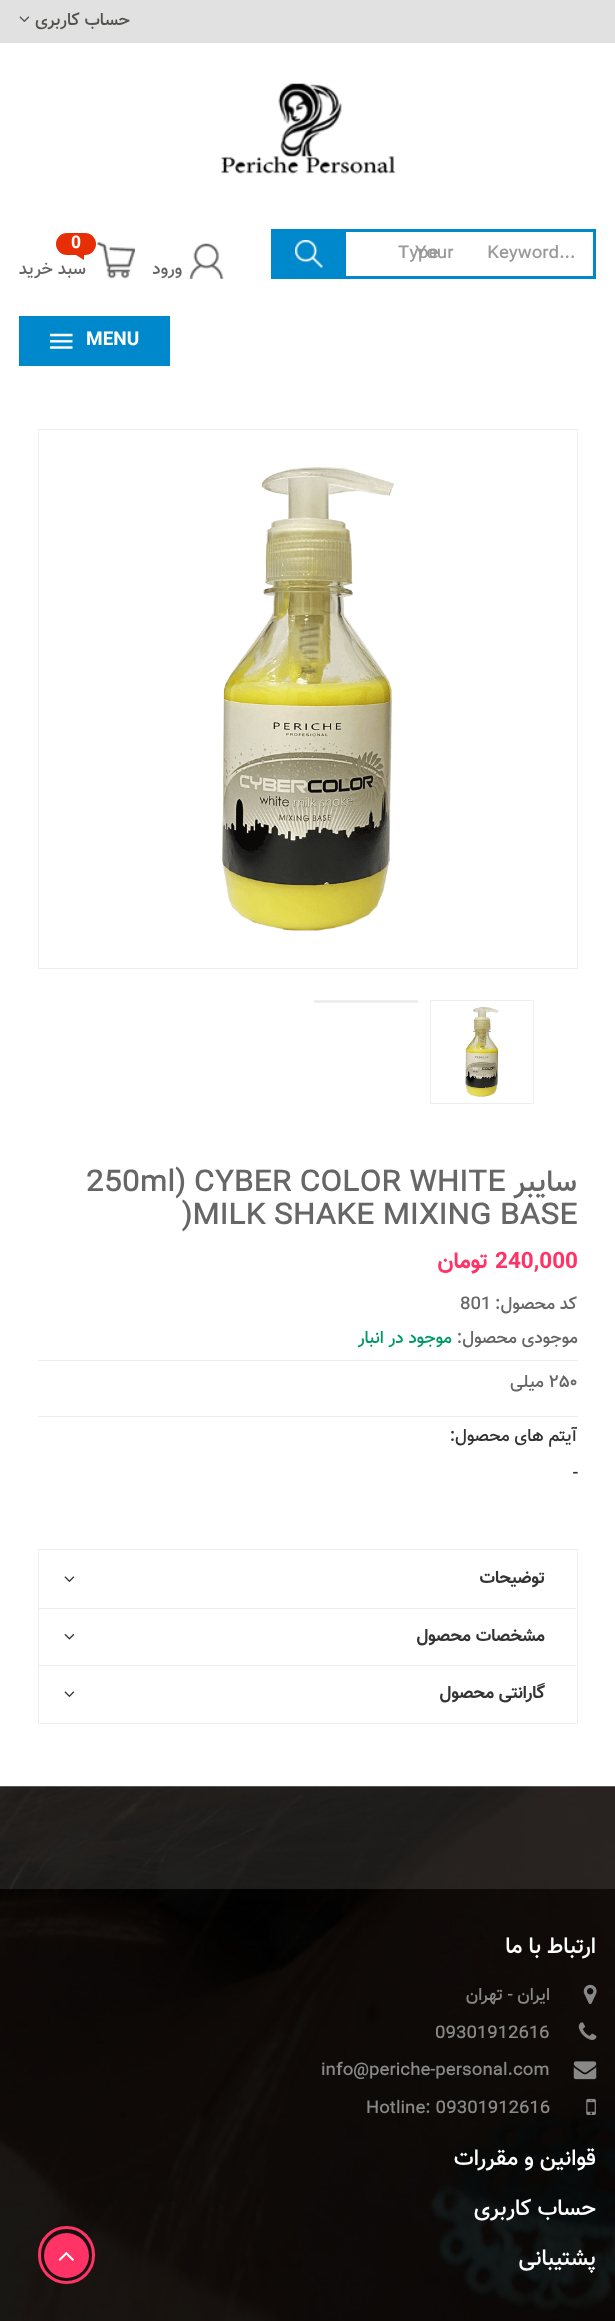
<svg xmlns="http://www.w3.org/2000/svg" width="615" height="2321">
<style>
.a{font:500 17.5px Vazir;direction:rtl;fill:#53524e}
.b{font:500 17.5px Vazir;fill:#999}
.c{font:500 17.5px Vazir;direction:rtl;fill:#666}
.d{font:bold 17.5px Vazir;fill:#fff}
.e{font:bold 19px Vazir;fill:#fff}
.f{font:500 30px Vazir;direction:rtl;fill:#666}
.g{font:500 30px Vazir;fill:#666}
.h{font:bold 22.5px Vazir;fill:#f36}
.i{font:bold 22.5px Vazir;direction:rtl;fill:#f36}
.j{font:500 17.5px Vazir;fill:#666}
.k{font:500 17.5px Vazir;direction:rtl;fill:#096}
.l{font:500 17.5px Vazir;direction:rtl;fill:#333}
.m{font:500 17.5px Vazir;fill:#333}
.n{font:bold 17.5px Vazir;direction:rtl;fill:#333}
.o{font:500 22.5px Vazir;direction:rtl;fill:#fff}
.p{font:500 17.5px Vazir;direction:rtl;fill:#888}
.q{font:500 17.5px Vazir;fill:#888}
</style>
<rect width="100%" height="100%" fill="#fff"/>
<path fill="#e1e1e1" d="M0 0h615v43H0z"/>
<image href="1.png" x="19" y="16" width="11" height="6"/>
<image href="2.png" x="221" y="83" width="175" height="91"/>
<path fill="none" stroke="#08c" stroke-width="3" d="M272.5 230.5h322v47H272.5z"/>
<path fill="#08c" d="M274 232h72v44H274z"/>
<image href="3.png" x="295" y="240" width="28" height="28"/>
<image href="4.png" x="189" y="243" width="35" height="36"/>
<image href="5.png" x="97" y="241" width="38" height="38"/>
<rect fill="#e82e05" x="56" y="233" width="40" height="22" rx="11"/>
<path fill="#e82e05" d="M84 255v5l-8-5z"/>
<path fill="#08c" d="M19 316h151v50H19z"/>
<image href="6.png" x="50" y="333" width="23" height="16"/>
<path fill="none" stroke="#eee" d="M38.5 429.5h539v539H38.5z"/>
<image href="7.png" x="222" y="467" width="172" height="465"/>
<path fill="none" stroke="#eee" d="M430.5 1000.5h103v103H430.5z"/>
<image href="8.png" x="465" y="1007" width="34" height="90"/>
<path fill="#eee" d="M314 1000h104v3H314z"/>
<path fill="#eee" d="M38 1360h540v1H38z"/>
<path fill="#eee" d="M38 1416h540v1H38z"/>
<path fill="none" stroke="#eee" d="M38.5 1549.5h539v174H38.5z"/>
<path fill="#eee" d="M39 1608h537v1H39z"/>
<image href="9.png" x="64" y="1576" width="11" height="6"/>
<path fill="#eee" d="M39 1665h537v1H39z"/>
<image href="10.png" x="64" y="1633" width="11" height="7"/>
<image href="9.png" x="64" y="1691" width="11" height="6"/>
<image href="11.png" x="0" y="1786" width="615" height="535"/>
<path fill="#ffffff1a" d="M0 1786h615v103H0z"/>
<image href="12.png" x="583" y="1984" width="14" height="21"/>
<image href="13.png" x="578" y="2022" width="19" height="18"/>
<image href="14.png" x="573" y="2061" width="24" height="19"/>
<image href="15.png" x="586" y="2098" width="10" height="17"/>
<rect fill="none" stroke="#f36" stroke-width="3" x="39.5" y="2227.5" width="54" height="55" rx="27"/>
<circle fill="#f36" cx="66.5" cy="2255.5" r="22.5"/>
<image href="16.png" x="58" y="2252" width="16" height="9"/>
<text class="a" x="130" y="25">حساب کاربری</text>
<text class="b" x="398" y="258">Type</text>
<text class="b" x="415" y="258" word-spacing="29">Your Keyword...</text>
<text class="c" x="182" y="274">ورود</text>
<text class="d" x="71" y="248">0</text>
<text class="c" x="86" y="274">سبد خرید</text>
<text class="e" x="86" y="345">MENU</text>
<text class="f" x="577" y="1191">سایبر</text>
<text class="g" x="86" y="1191">250ml) CYBER COLOR WHITE</text>
<text class="g" x="182" y="1224">)MILK SHAKE MIXING BASE</text>
<text class="h" x="495" y="1268">240,000</text>
<text class="i" x="488" y="1268">تومان</text>
<text class="c" x="577" y="1309">کد محصول:</text>
<text class="j" x="460" y="1309">801</text>
<text class="c" x="578" y="1343">موجودی محصول:</text>
<text class="k" x="452" y="1343">موجود در انبار</text>
<text class="j" x="549" y="1387">۲۵۰</text>
<text class="c" x="544" y="1387">میلی</text>
<text class="l" x="577" y="1441">آیتم های محصول:</text>
<text class="m" x="573" y="1478">-</text>
<text class="n" x="545" y="1583">توضیحات</text>
<text class="n" x="545" y="1641">مشخصات محصول</text>
<text class="n" x="545" y="1698">گارانتی محصول</text>
<text class="o" x="596" y="1953">ارتباط با ما</text>
<text class="p" x="550" y="2000">ایران - تهران</text>
<text class="q" x="435" y="2038">09301912616</text>
<text class="q" x="321" y="2075">info@periche-personal.com</text>
<text class="q" x="366" y="2113">Hotline: 09301912616</text>
<text class="o" x="596" y="2165">قوانین و مقررات</text>
<text class="o" x="596" y="2215">حساب کاربری</text>
<text class="o" x="596" y="2265">پشتیبانی</text>
</svg>
